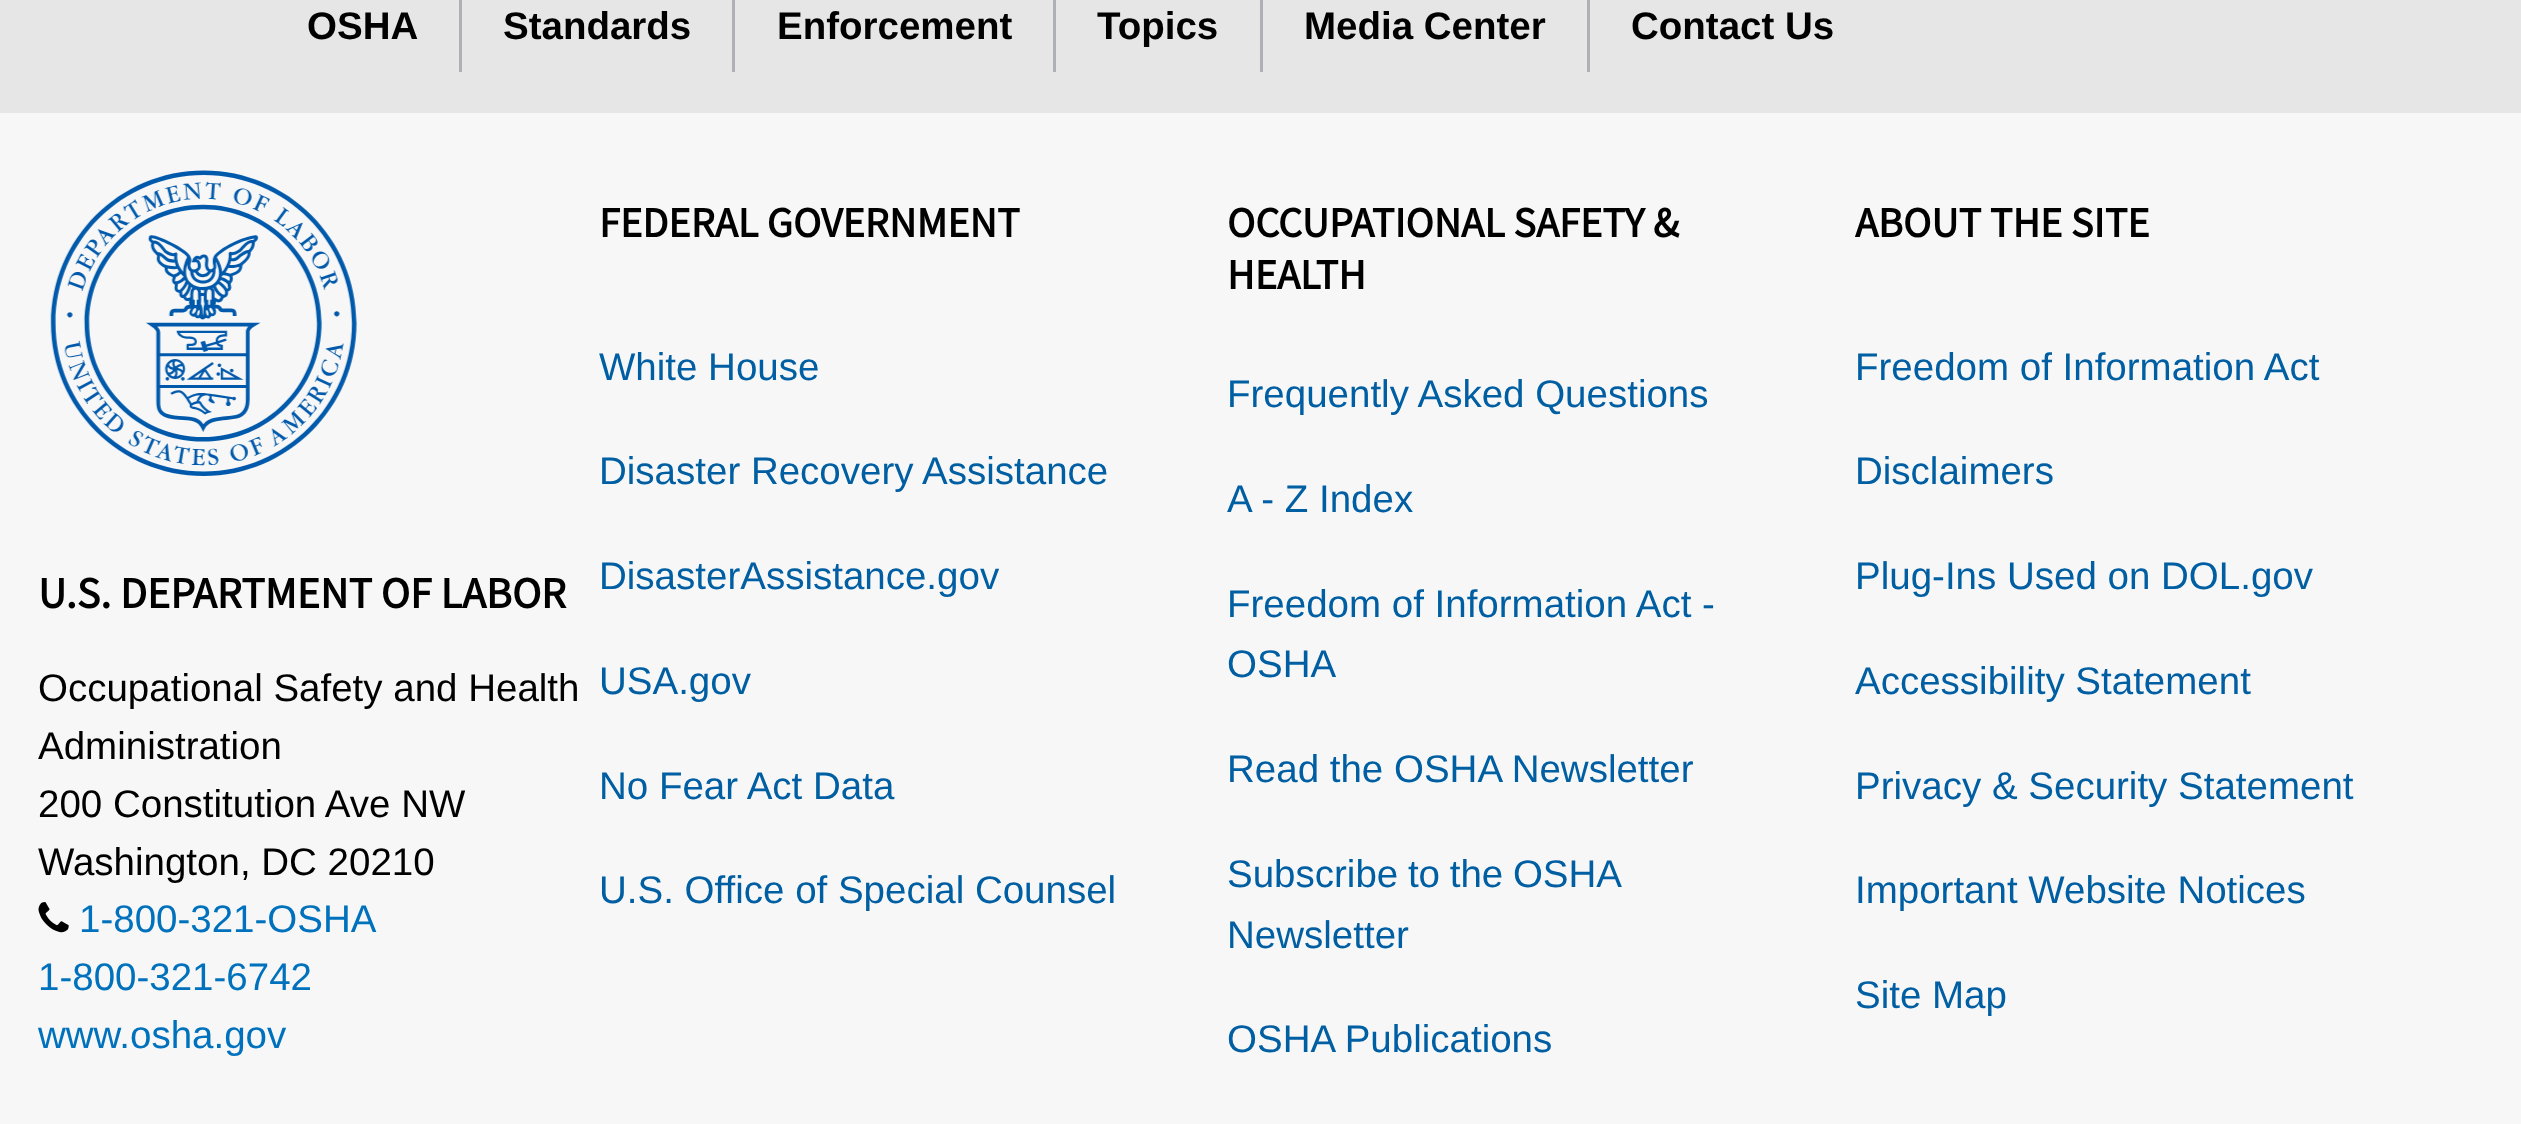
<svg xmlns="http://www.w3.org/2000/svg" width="2521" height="1124">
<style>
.a{font:bold 38.5px Liberation Sans;fill:#000}
.b{font:bold 44px Source Sans Pro;fill:#000}
.c{font:38.5px Liberation Sans;fill:#000}
.d{font:38.5px Liberation Sans;fill:#0071bc}
.e{font:bold 42.4px Source Sans Pro;fill:#000}
.f{font:38.5px Liberation Sans;fill:#005ea2}
</style>
<rect width="100%" height="100%" fill="#e6e6e6"/>
<path fill="#aeb0b5" d="M459 0h3v72H459z"/>
<path fill="#aeb0b5" d="M732 0h3v72H732z"/>
<path fill="#aeb0b5" d="M1053 0h3v72H1053z"/>
<path fill="#aeb0b5" d="M1260 0h3v72H1260z"/>
<path fill="#aeb0b5" d="M1587 0h3v72H1587z"/>
<path fill="#f7f7f7" d="M0 113h2521v1011H0z"/>
<image href="1.png" x="50" y="170" width="307" height="306"/>
<image href="2.png" x="38" y="902" width="31" height="31"/>
<text class="a" x="307" y="39">OSHA</text>
<text class="a" x="503" y="39">Standards</text>
<text class="a" x="777" y="39">Enforcement</text>
<text class="a" x="1097" y="39">Topics</text>
<text class="a" x="1304" y="39">Media Center</text>
<text class="a" x="1631" y="39">Contact Us</text>
<text class="b" x="38" y="608">U.S. DEPARTMENT OF LABOR</text>
<text class="c" x="38" y="701">Occupational Safety and Health</text>
<text class="c" x="38" y="759">Administration</text>
<text class="c" x="38" y="817">200 Constitution Ave NW</text>
<text class="c" x="38" y="875">Washington, DC 20210</text>
<text class="d" x="79" y="932">1-800-321-OSHA</text>
<text class="d" x="38" y="990">1-800-321-6742</text>
<text class="d" x="38" y="1048">www.osha.gov</text>
<text class="e" x="599" y="237">FEDERAL GOVERNMENT</text>
<text class="f" x="599" y="380">White House</text>
<text class="f" x="599" y="484">Disaster Recovery Assistance</text>
<text class="f" x="599" y="589">DisasterAssistance.gov</text>
<text class="f" x="599" y="694">USA.gov</text>
<text class="f" x="599" y="799">No Fear Act Data</text>
<text class="f" x="599" y="903">U.S. Office of Special Counsel</text>
<text class="e" x="1227" y="237">OCCUPATIONAL SAFETY &amp;</text>
<text class="e" x="1227" y="289">HEALTH</text>
<text class="f" x="1227" y="407">Frequently Asked Questions</text>
<text class="f" x="1227" y="512">A - Z Index</text>
<text class="f" x="1227" y="617">Freedom of Information Act -</text>
<text class="f" x="1227" y="677">OSHA</text>
<text class="f" x="1227" y="782">Read the OSHA Newsletter</text>
<text class="f" x="1227" y="887" word-spacing="-1">Subscribe to the OSHA</text>
<text class="f" x="1227" y="948">Newsletter</text>
<text class="f" x="1227" y="1052">OSHA Publications</text>
<text class="e" x="1855" y="237">ABOUT THE SITE</text>
<text class="f" x="1855" y="380">Freedom of Information Act</text>
<text class="f" x="1855" y="484">Disclaimers</text>
<text class="f" x="1855" y="589">Plug-Ins Used on DOL.gov</text>
<text class="f" x="1855" y="694">Accessibility Statement</text>
<text class="f" x="1855" y="799">Privacy &amp; Security Statement</text>
<text class="f" x="1855" y="903">Important Website Notices</text>
<text class="f" x="1855" y="1008">Site Map</text>
</svg>
